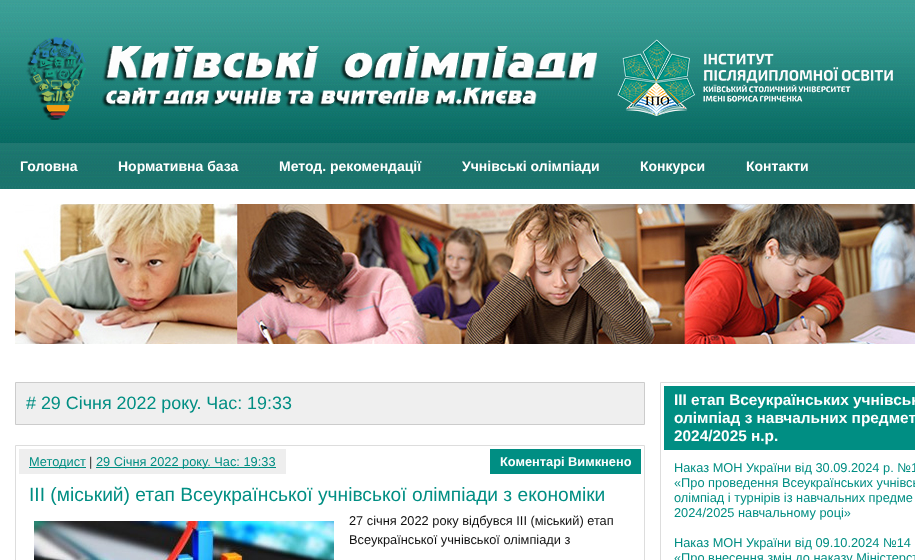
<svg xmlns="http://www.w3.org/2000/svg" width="915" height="560">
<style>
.a{font:bold 14px Liberation Sans;fill:#fff}
.b{font:17.9px Liberation Sans;fill:#008e83}
.c{font:12.8px Liberation Sans;fill:#008e83}
.d{font:12.8px Liberation Sans;fill:#333}
.e{font:bold 12.8px Liberation Sans;fill:#fff}
.f{font:19.2px Liberation Sans;fill:#008e83}
.g{font:12.8px Liberation Sans;fill:#111}
.h{font:bold 15.4px Liberation Sans;fill:#fff}
</style>
<rect width="100%" height="100%" fill="#008e83"/>
<image href="1.png" x="0" y="0" width="915" height="189"/>
<image href="2.png" x="26" y="37" width="867" height="83"/>
<path fill="#ffffff1a" d="M0 143h915v46H0z"/>
<path fill="#fff" d="M0 189h915v371H0z"/>
<image href="3.png" x="15" y="204" width="900" height="140"/>
<path fill="#efefef" stroke="#ccc" d="M15.5 382.5h629v42H15.5z"/>
<path fill="none" stroke="#ddd" d="M15.5 445.5h629v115H15.5z"/>
<path fill="#eee" d="M19 449h267v25H19z"/>
<path fill="#008e83" d="M29 467h57v1H29z"/>
<path fill="#008e83" d="M96 467h180v1H96z"/>
<path fill="#008e83" d="M490 449h151v25H490z"/>
<image href="4.png" x="34" y="521" width="300" height="39"/>
<path fill="none" stroke="#ddd" d="M660.5 382.5h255v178H660.5z"/>
<path fill="#008e83" d="M664 386h251v64H664z"/>
<text class="a" x="20" y="171">Головна</text>
<text class="a" x="118" y="171">Нормативна база</text>
<text class="a" x="279" y="171">Метод. рекомендації</text>
<text class="a" x="462" y="171">Учнівські олімпіади</text>
<text class="a" x="640" y="171">Конкурси</text>
<text class="a" x="746" y="171">Контакти</text>
<text class="b" x="26" y="409"># 29 Січня 2022 року. Час: 19:33</text>
<text class="c" x="29" y="466">Методист</text>
<text class="d" x="89" y="466">|</text>
<text class="c" x="96" y="466">29 Січня 2022 року. Час: 19:33</text>
<text class="e" x="500" y="466">Коментарі Вимкнено</text>
<text class="f" x="29" y="501">ІІІ (міський) етап Всеукраїнської учнівської олімпіади з економіки</text>
<text class="g" x="349" y="525">27 січня 2022 року відбувся III (міський) етап</text>
<text class="g" x="349" y="544">Всеукраїнської учнівської олімпіади з</text>
<text class="h" x="674" y="405">ІІІ етап Всеукраїнських учнівськ</text>
<text class="h" x="674" y="423">олімпіад з навчальних предмет</text>
<text class="h" x="674" y="441">2024/2025 н.р.</text>
<text class="c" x="674" y="472">Наказ МОН України від 30.09.2024 р. №1</text>
<text class="c" x="674" y="487">«Про проведення Всеукраїнських учнівсь</text>
<text class="c" x="674" y="502">олімпіад і турнірів із навчальних предме</text>
<text class="c" x="674" y="517">2024/2025 навчальному році»</text>
<text class="c" x="674" y="547">Наказ МОН України від 09.10.2024 №14</text>
<text class="c" x="674" y="562">«Про внесення змін до наказу Міністерст</text>
</svg>
